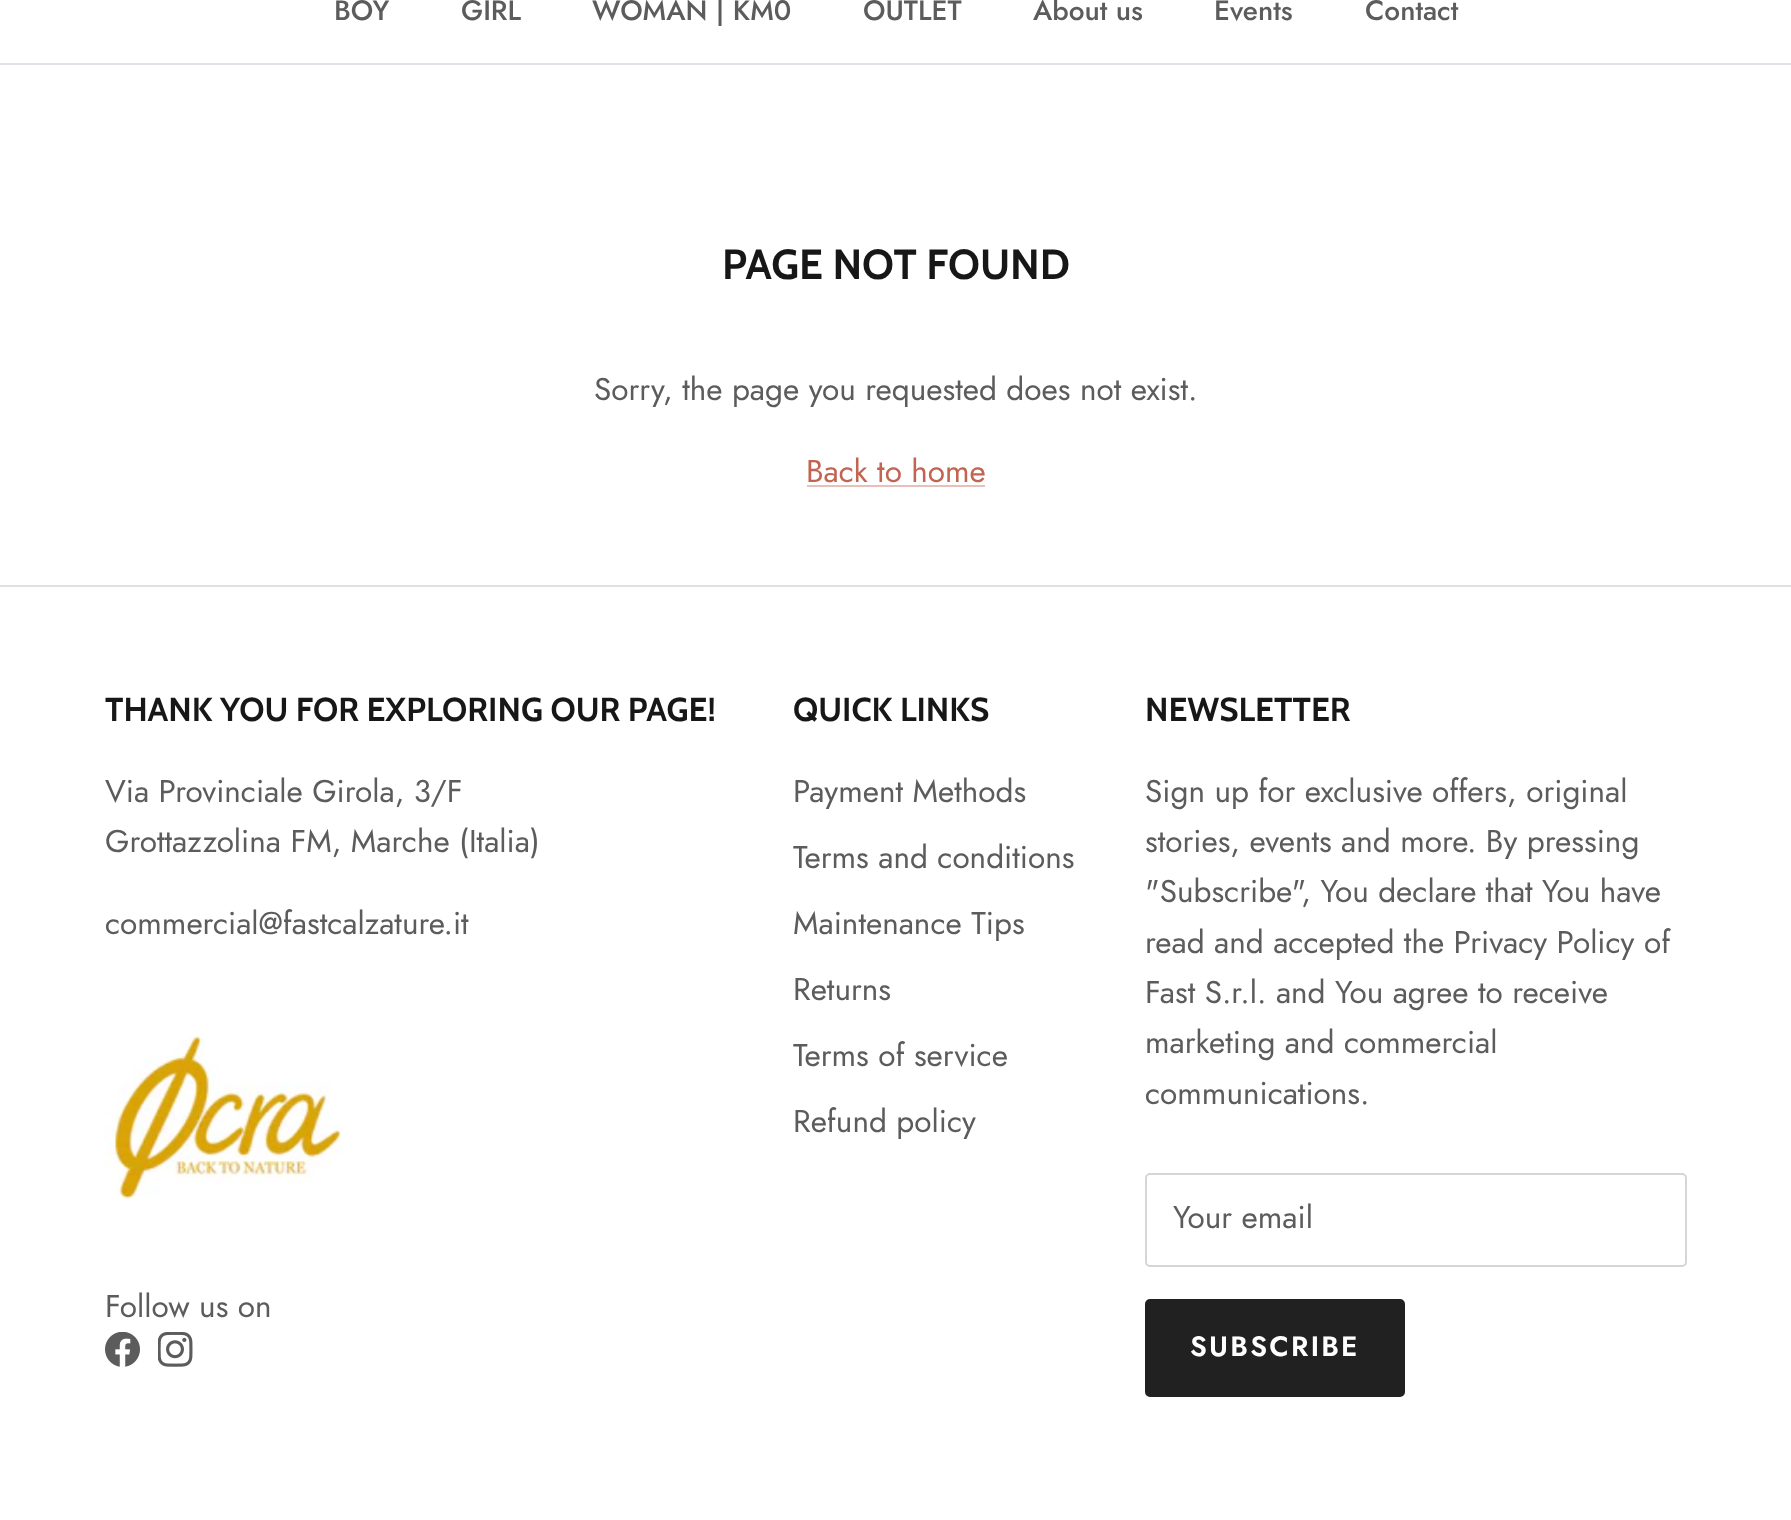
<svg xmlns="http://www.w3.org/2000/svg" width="1791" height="1520">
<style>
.a{font:500 28px Jost;fill:#5c5c5c}
.b{font:bold 42px Cabin;fill:#171717}
.c{font:31.5px Jost;fill:#5c5c5c}
.d{font:31.5px Jost;fill:#c16452}
.e{font:bold 33.2px Cabin;fill:#171717}
.f{font:600 28px Jost;letter-spacing:2.25px;fill:#fff}
</style>
<rect width="100%" height="100%" fill="#fff"/>
<path fill="#dfe3e8" d="M0 63h1791v2H0z"/>
<path fill="#e6c1ba" d="M807 485h178v2H807z"/>
<path fill="#e0e0e0" d="M0 585h1791v2H0z"/>
<image href="1.png" x="105" y="1034" width="238" height="165"/>
<image href="2.png" x="105" y="1332" width="35" height="35"/>
<image href="3.png" x="158" y="1332" width="35" height="35"/>
<rect fill="none" stroke="#d6d6d6" stroke-width="2" x="1146" y="1174" width="540" height="92" rx="4"/>
<rect fill="#212121" stroke="#212121" stroke-width="2" x="1146" y="1300" width="258" height="96" rx="4"/>
<text class="a" x="334" y="20">BOY</text>
<text class="a" x="461" y="20">GIRL</text>
<text class="a" x="592" y="20">WOMAN | KM0</text>
<text class="a" x="863" y="20">OUTLET</text>
<text class="a" x="1033" y="20">About us</text>
<text class="a" x="1214" y="20">Events</text>
<text class="a" x="1365" y="20">Contact</text>
<text class="b" x="722" y="279">PAGE NOT FOUND</text>
<text class="c" x="594" y="400">Sorry, the page you requested does not exist.</text>
<text class="d" x="806" y="482">Back to home</text>
<text class="e" x="105" y="721">THANK YOU FOR EXPLORING OUR PAGE!</text>
<text class="c" x="105" y="802">Via Provinciale Girola, 3/F</text>
<text class="c" x="105" y="852">Grottazzolina FM, Marche (Italia)</text>
<text class="c" x="105" y="934">commercial@fastcalzature.it</text>
<text class="c" x="105" y="1317">Follow us on</text>
<text class="e" x="793" y="721">QUICK LINKS</text>
<text class="c" x="793" y="802">Payment Methods</text>
<text class="c" x="793" y="868">Terms and conditions</text>
<text class="c" x="793" y="934">Maintenance Tips</text>
<text class="c" x="793" y="1000">Returns</text>
<text class="c" x="793" y="1066">Terms of service</text>
<text class="c" x="793" y="1132">Refund policy</text>
<text class="e" x="1145" y="721">NEWSLETTER</text>
<text class="c" x="1145" y="802">Sign up for exclusive offers, original</text>
<text class="c" x="1145" y="852">stories, events and more. By pressing</text>
<text class="c" x="1145" y="902">"Subscribe", You declare that You have</text>
<text class="c" x="1145" y="953">read and accepted the Privacy Policy of</text>
<text class="c" x="1145" y="1003">Fast S.r.l. and You agree to receive</text>
<text class="c" x="1145" y="1053">marketing and commercial</text>
<text class="c" x="1145" y="1104">communications.</text>
<text class="c" x="1173" y="1228">Your email</text>
<text class="f" x="1190" y="1356">SUBSCRIBE</text>
</svg>
